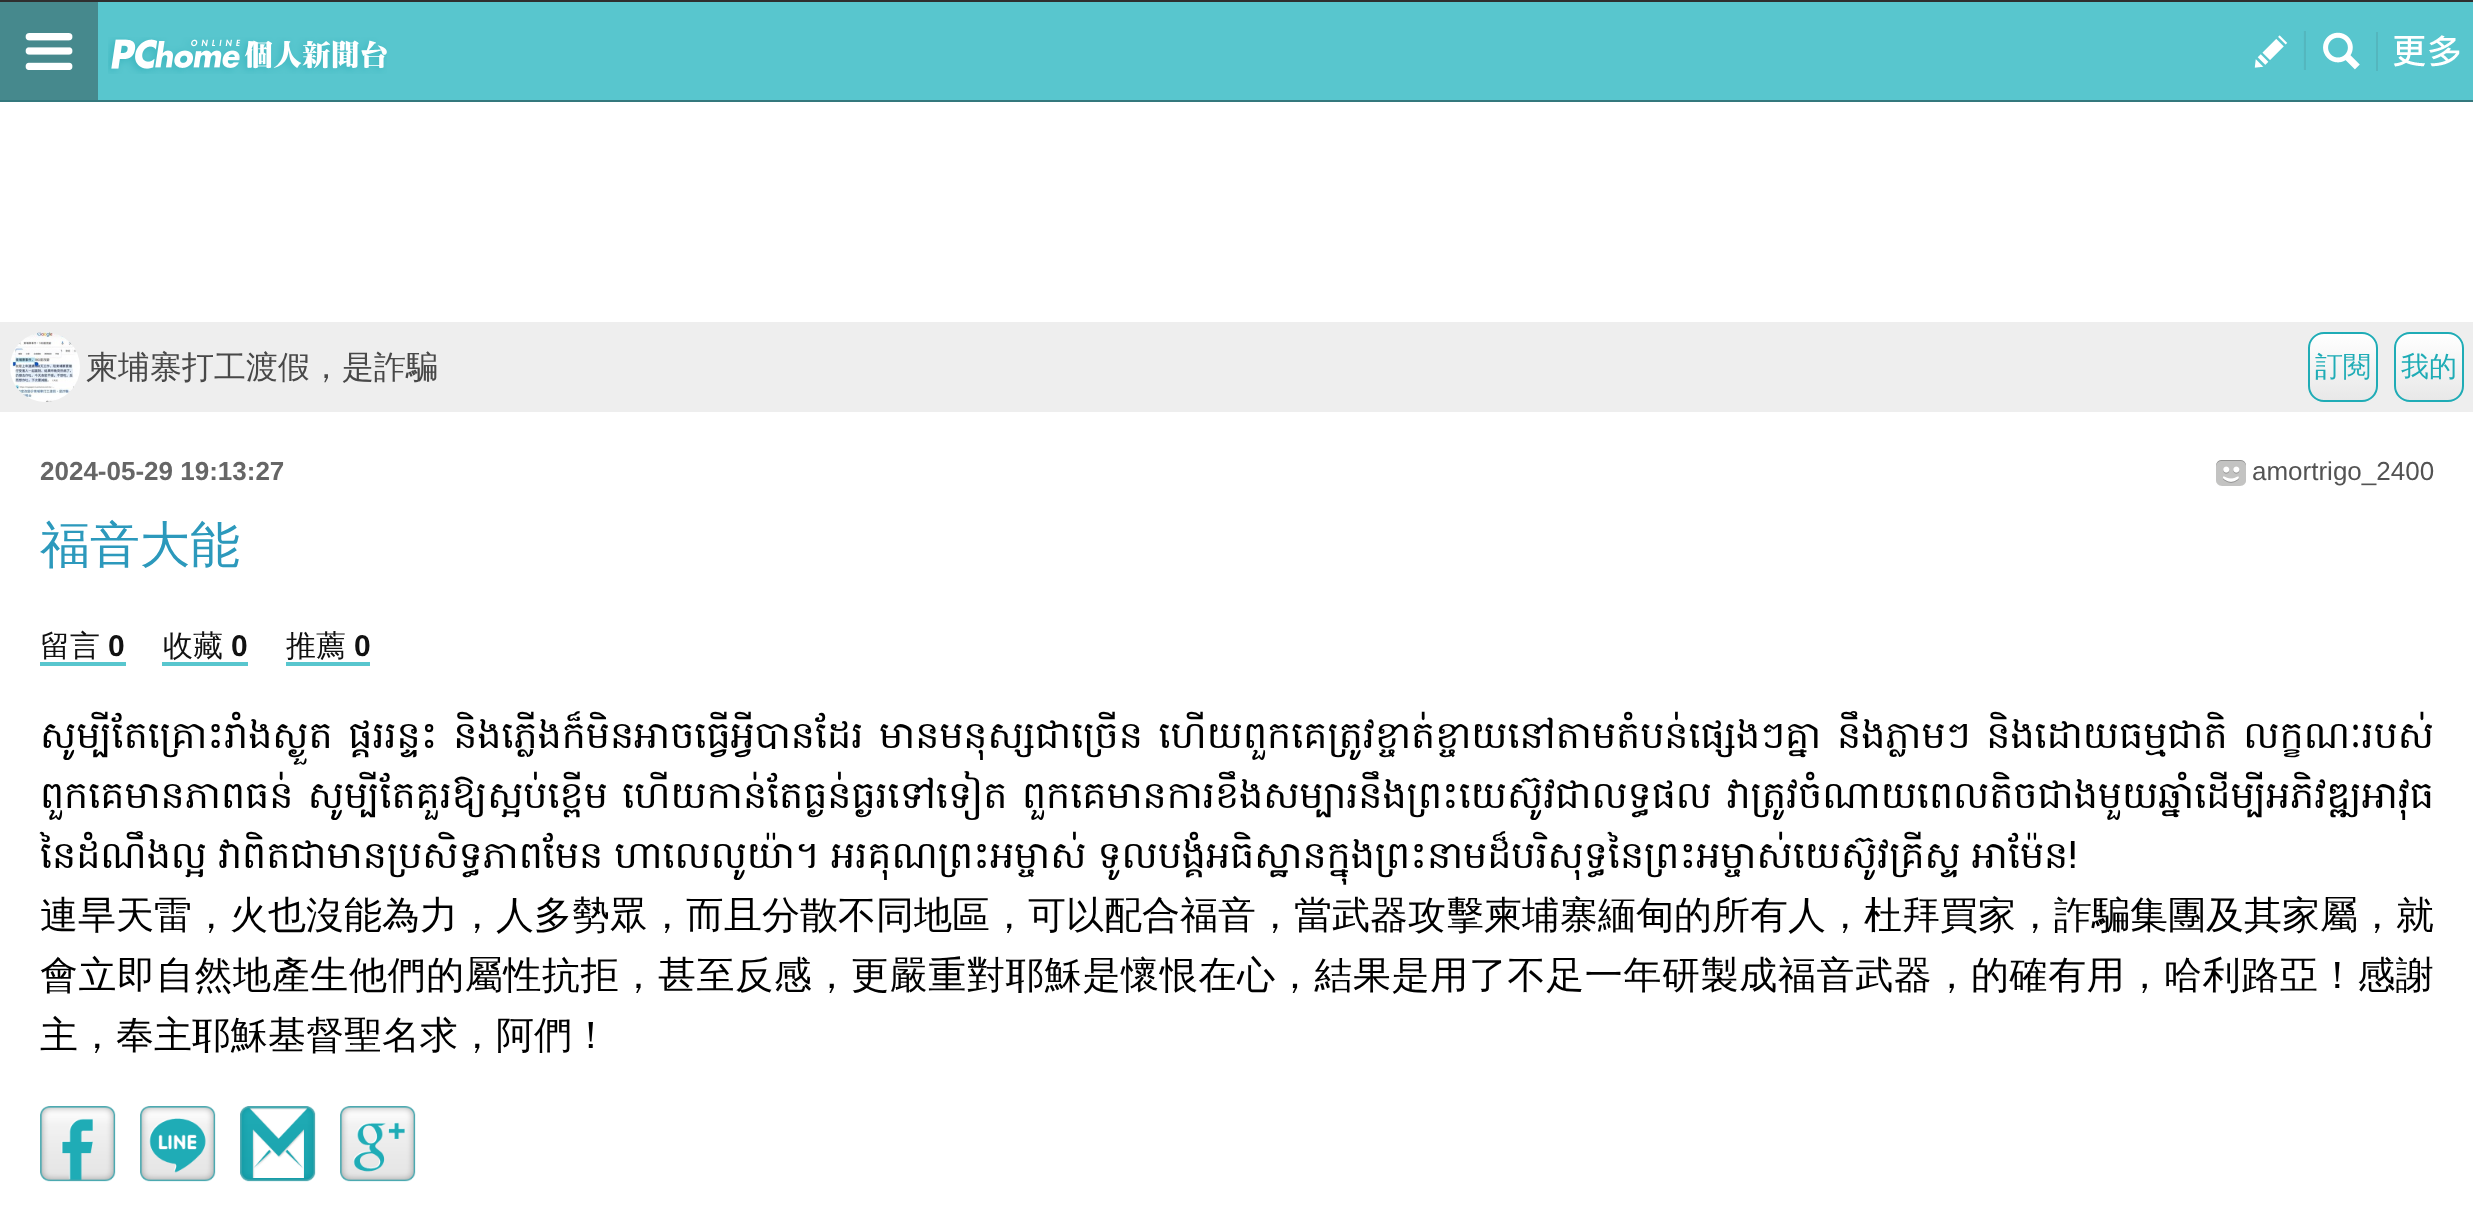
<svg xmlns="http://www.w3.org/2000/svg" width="2473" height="1206">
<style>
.a{font:500 32px WenQuanYi Zen Hei;fill:#484848}
.b{font:500 28px WenQuanYi Zen Hei;fill:#1facb6}
.c{font:bold 26px Liberation Sans;fill:#666}
.d{font:26px Liberation Sans;fill:#535353}
.e{font:500 50px WenQuanYi Zen Hei;fill:#2c99bc}
.f{font:500 30px WenQuanYi Zen Hei;fill:#111}
.g{font:bold 30px Liberation Sans;fill:#111}
.h{font:38px Hanuman;fill:#000}
.i{font:500 38px WenQuanYi Zen Hei;fill:#000}
.j{font:500 38px WenQuanYi Zen Hei;letter-spacing:0.62px;fill:#000}
</style>
<defs>
<clipPath id="clip1"><rect x="2308" y="332" width="70" height="70" rx="16"/></clipPath>
<linearGradient id="g1" gradientUnits="userSpaceOnUse" x1="2343" y1="334" x2="2343" y2="400"><stop offset="0" stop-color="#fff"/><stop offset="1" stop-color="#e8e8e8"/></linearGradient>
<clipPath id="clip2"><rect x="2394" y="332" width="70" height="70" rx="16"/></clipPath>
<linearGradient id="g2" gradientUnits="userSpaceOnUse" x1="2429" y1="334" x2="2429" y2="400"><stop offset="0" stop-color="#fff"/><stop offset="1" stop-color="#e8e8e8"/></linearGradient>
</defs>
<rect width="100%" height="100%" fill="#fff"/>
<path fill="#58c6ce" d="M0 2h2473v98H0z"/>
<path fill="#2f2f2f" d="M0 0h2473v2H0z"/>
<path fill="#34787d" d="M0 100h2473v2H0z"/>
<image href="1.png" x="0" y="2" width="98" height="98"/>
<image href="2.png" x="108" y="37" width="279" height="37"/>
<image href="3.png" x="2254" y="31" width="52" height="39"/>
<image href="4.png" x="2323" y="32" width="37" height="38"/>
<image href="5.png" x="2376" y="32" width="84" height="39"/>
<path fill="#eee" d="M0 322h2473v90H0z"/>
<image href="6.png" x="10" y="332" width="70" height="70"/>
<g clip-path="url(#clip1)">
<path fill="url(#g1)" d="M2308 334h70v66H2308z"/>
</g>
<rect fill="none" stroke="#1facb6" stroke-width="2" x="2309" y="333" width="68" height="68" rx="15"/>
<g clip-path="url(#clip2)">
<path fill="url(#g2)" d="M2394 334h70v66H2394z"/>
</g>
<rect fill="none" stroke="#1facb6" stroke-width="2" x="2395" y="333" width="68" height="68" rx="15"/>
<image href="7.png" x="2216" y="460" width="30" height="26"/>
<path fill="#58c6ce" d="M40 662h86v4H40z"/>
<path fill="#58c6ce" d="M162 662h86v4H162z"/>
<path fill="#58c6ce" d="M286 662h84v4H286z"/>
<image href="8.png" x="40" y="1106" width="76" height="76"/>
<image href="9.png" x="140" y="1106" width="76" height="76"/>
<image href="10.png" x="240" y="1106" width="76" height="76"/>
<image href="11.png" x="340" y="1106" width="76" height="76"/>
<text class="a" x="86" y="378">柬埔寨打工渡假，是詐騙</text>
<text class="b" x="2315" y="376">訂閱</text>
<text class="b" x="2401" y="376">我的</text>
<text class="c" x="40" y="480">2024-05-29 19:13:27</text>
<text class="d" x="2252" y="480">amortrigo_2400</text>
<text class="e" x="40" y="562">福音大能</text>
<text class="f" x="40" y="656">留言</text>
<text class="g" x="108" y="656">0</text>
<text class="f" x="163" y="656">收藏</text>
<text class="g" x="231" y="656">0</text>
<text class="f" x="286" y="656">推薦</text>
<text class="g" x="354" y="656">0</text>
<text class="h" x="40" y="748" word-spacing="2.75">សូម្បីតែគ្រោះរាំងស្ងួត ផ្គររន្ទះ និងភ្លើងក៏មិនអាចធ្វើអ្វីបានដែរ មានមនុស្សជាច្រើន ហើយពួកគេត្រូវខ្ចាត់ខ្ចាយនៅតាមតំបន់ផ្សេងៗគ្នា នឹងភ្លាមៗ និងដោយធម្មជាតិ លក្ខណៈរបស់</text>
<text class="h" x="40" y="808" word-spacing="1.5">ពួកគេមានភាពធន់ សូម្បីតែគួរឱ្យស្អប់ខ្ពើម ហើយកាន់តែធ្ងន់ធ្ងរទៅទៀត ពួកគេមានការខឹងសម្បារនឹងព្រះយេស៊ូវជាលទ្ធផល វាត្រូវចំណាយពេលតិចជាងមួយឆ្នាំដើម្បីអភិវឌ្ឍអាវុធ</text>
<text class="h" x="40" y="868" word-spacing="-2">នៃដំណឹងល្អ វាពិតជាមានប្រសិទ្ធភាពមែន ហាលេលូយ៉ា។ អរគុណព្រះអម្ចាស់ ទូលបង្គំអធិស្ឋានក្នុងព្រះនាមដ៏បរិសុទ្ធនៃព្រះអម្ចាស់យេស៊ូវគ្រីស្ទ អាម៉ែន!</text>
<text class="i" x="40" y="928">連旱天雷，火也沒能為力，人多勢眾，而且分散不同地區，可以配合福音，當武器攻擊柬埔寨緬甸的所有人，杜拜買家，詐騙集團及其家屬，就</text>
<text class="j" x="40" y="988">會立即自然地產生他們的屬性抗拒，甚至反感，更嚴重對耶穌是懷恨在心，結果是用了不足一年研製成福音武器，的確有用，哈利路亞！感謝</text>
<text class="i" x="40" y="1048">主，奉主耶穌基督聖名求，阿們！</text>
</svg>
